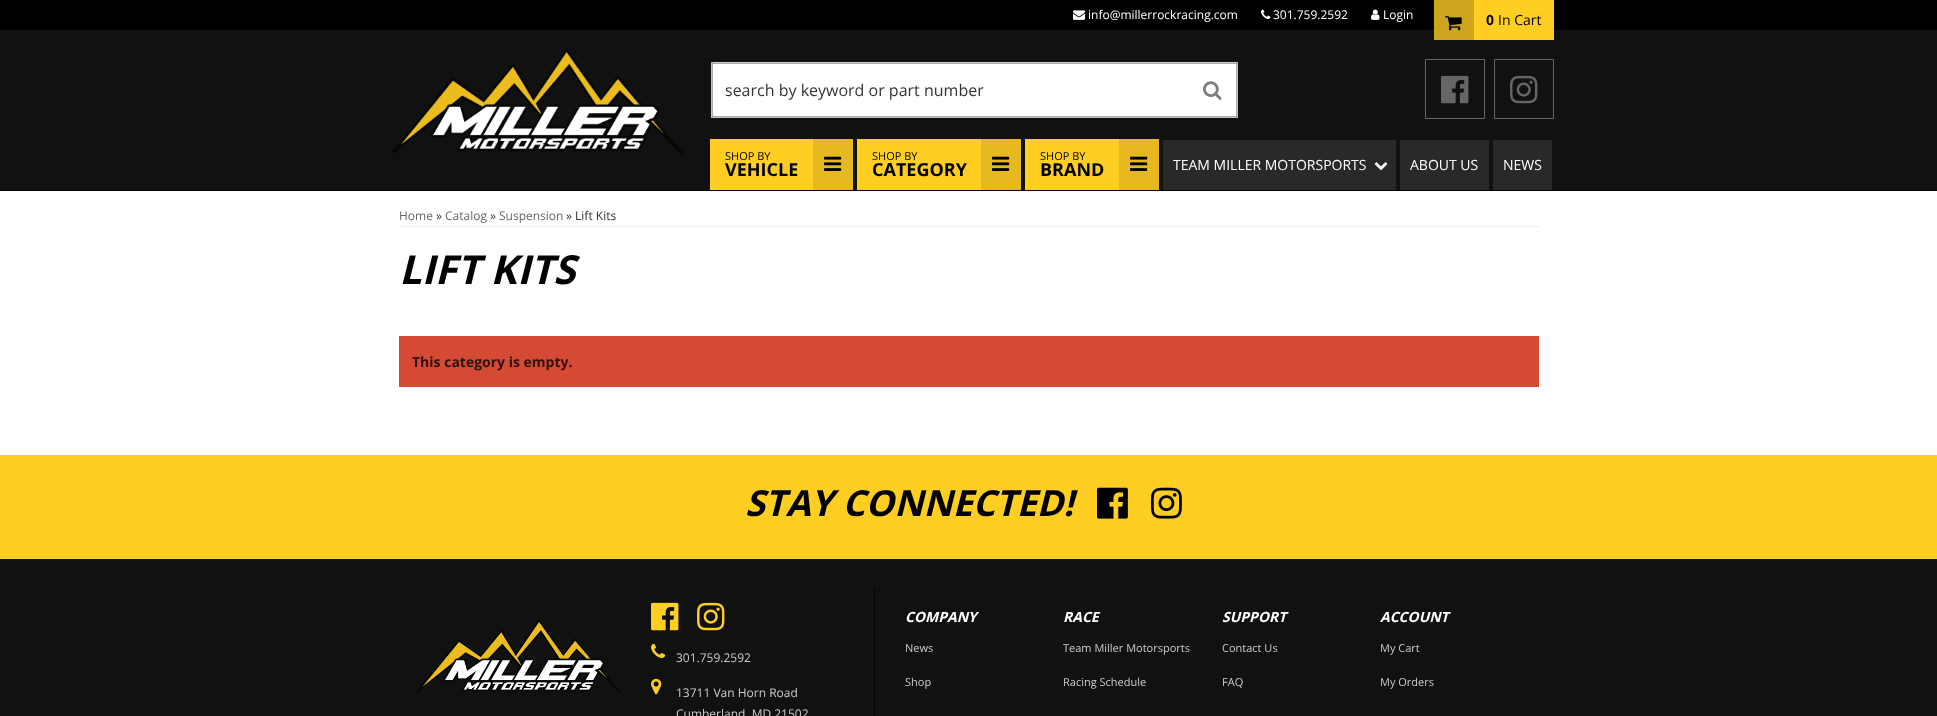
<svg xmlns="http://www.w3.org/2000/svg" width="1937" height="716">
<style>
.a{font:12px Open Sans;fill:#fff}
.b{font:bold 14px Open Sans;fill:#000}
.c{font:14px Open Sans;fill:#000}
.d{font:16px Open Sans;fill:#333}
.e{font:11px Open Sans;fill:#000}
.f{font:bold 18px Open Sans;fill:#000}
.g{font:14px Open Sans;fill:#fff}
.h{font:12px Open Sans;fill:#666}
.i{font:12px Open Sans;fill:#333}
.j{font:italic bold 40px Open Sans;fill:#000}
.k{font:bold 14px Open Sans;fill:#32100b}
.l{font:italic bold 36px Open Sans;fill:#000}
.m{font:12px Open Sans;fill:#ccc}
.n{font:italic bold 14px Open Sans;fill:#fff}
.o{font:11px Open Sans;fill:#ccc}
</style>
<defs>
<clipPath id="clip1"><path d="M711 62h527v56H711z"/></clipPath>
</defs>
<rect width="100%" height="100%" fill="#fff"/>
<path fill="#111" d="M0 30h1937v160H0z"/>
<path fill="#000" d="M0 190h1937v1H0z"/>
<path fill="#000" d="M0 0h1937v30H0z"/>
<image href="1.png" x="1073" y="10" width="12" height="10"/>
<image href="2.png" x="1261" y="9" width="10" height="10"/>
<image href="3.png" x="1371" y="9" width="9" height="11"/>
<path fill="#ffce23" d="M1474 0h80v40H1474z"/>
<path fill="#cca51c" d="M1434 0h40v40H1434z"/>
<image href="4.png" x="1445" y="16" width="17" height="15"/>
<image href="5.png" x="392" y="48" width="291" height="106"/>
<path fill="#fff" d="M713 64h523v52H713z"/>
<path fill="none" stroke="#ccc" d="M711.5 62.5h526v55H711.5z"/>
<g clip-path="url(#clip1)">
<path fill="#c4c4c4" d="M711 63v56h527v-56h-1v54h-525v-54z"/>
</g>
<path fill="none" stroke="#aaa" d="M712.5 63.5h524v53H712.5z"/>
<image href="6.png" x="1203" y="81" width="19" height="19"/>
<path fill="none" stroke="#666" d="M1425.5 59.5h59v59H1425.5z"/>
<image href="7.png" x="1441" y="75" width="28" height="29"/>
<path fill="none" stroke="#666" d="M1494.5 59.5h59v59H1494.5z"/>
<image href="8.png" x="1510" y="75" width="28" height="29"/>
<path fill="#ffce23" d="M710 139h103v51H710z"/>
<path fill="#e6b920" d="M813 139h40v51H813z"/>
<image href="9.png" x="824" y="156" width="18" height="15"/>
<path fill="#ffce23" d="M857 139h124v51H857z"/>
<path fill="#e6b920" d="M981 139h40v51H981z"/>
<image href="9.png" x="992" y="156" width="18" height="15"/>
<path fill="#ffce23" d="M1025 139h94v51H1025z"/>
<path fill="#e6b920" d="M1119 139h40v51H1119z"/>
<image href="9.png" x="1130" y="156" width="18" height="15"/>
<path fill="#292929" d="M1163 140h233v50H1163z"/>
<image href="10.png" x="1374" y="162" width="14" height="9"/>
<path fill="#292929" d="M1400 140h89v50H1400z"/>
<path fill="#292929" d="M1493 140h59v50H1493z"/>
<path fill="#eee" d="M399 226h1140v1H399z"/>
<path fill="#d44a35" d="M399 336h1140v51H399z"/>
<path fill="#111" d="M0 559h1937v157H0z"/>
<path fill="#ffce23" d="M0 455h1937v104H0z"/>
<image href="11.png" x="1097" y="487" width="31" height="32"/>
<image href="12.png" x="1151" y="487" width="31" height="32"/>
<image href="13.png" x="416" y="619" width="205" height="74"/>
<image href="14.png" x="651" y="602" width="28" height="29"/>
<image href="15.png" x="697" y="602" width="28" height="29"/>
<image href="16.png" x="651" y="643" width="15" height="15"/>
<image href="17.png" x="651" y="678" width="11" height="17"/>
<path fill="#000" d="M874 589h1v127H874z"/>
<text class="a" x="1088" y="19">info@millerrockracing.com</text>
<text class="a" x="1273" y="19">301.759.2592</text>
<text class="a" x="1383" y="19">Login</text>
<text class="b" x="1486" y="25">0</text>
<text class="c" x="1498" y="25">In Cart</text>
<text class="d" x="725" y="96">search by keyword or part number</text>
<text class="e" x="725" y="160">SHOP BY</text>
<text class="f" x="725" y="176">VEHICLE</text>
<text class="e" x="872" y="160">SHOP BY</text>
<text class="f" x="872" y="176">CATEGORY</text>
<text class="e" x="1040" y="160">SHOP BY</text>
<text class="f" x="1040" y="176">BRAND</text>
<text class="g" x="1173" y="170">TEAM MILLER MOTORSPORTS</text>
<text class="g" x="1410" y="170">ABOUT US</text>
<text class="g" x="1503" y="170">NEWS</text>
<text class="h" x="399" y="220">Home</text>
<text class="i" x="436" y="220">»</text>
<text class="h" x="445" y="220">Catalog</text>
<text class="i" x="490" y="220">»</text>
<text class="h" x="499" y="220">Suspension</text>
<text class="i" x="566" y="220">» Lift Kits</text>
<text class="j" x="399" y="284">LIFT KITS</text>
<text class="k" x="412" y="367">This category is empty.</text>
<text class="l" x="745" y="516">STAY CONNECTED!</text>
<text class="m" x="676" y="662">301.759.2592</text>
<text class="m" x="676" y="697">13711 Van Horn Road</text>
<text class="m" x="676" y="718">Cumberland, MD 21502</text>
<text class="n" x="905" y="622">COMPANY</text>
<text class="o" x="905" y="652">News</text>
<text class="o" x="905" y="686">Shop</text>
<text class="n" x="1063" y="622">RACE</text>
<text class="o" x="1063" y="652">Team Miller Motorsports</text>
<text class="o" x="1063" y="686">Racing Schedule</text>
<text class="n" x="1222" y="622">SUPPORT</text>
<text class="o" x="1222" y="652">Contact Us</text>
<text class="o" x="1222" y="686">FAQ</text>
<text class="n" x="1380" y="622">ACCOUNT</text>
<text class="o" x="1380" y="652">My Cart</text>
<text class="o" x="1380" y="686">My Orders</text>
</svg>
